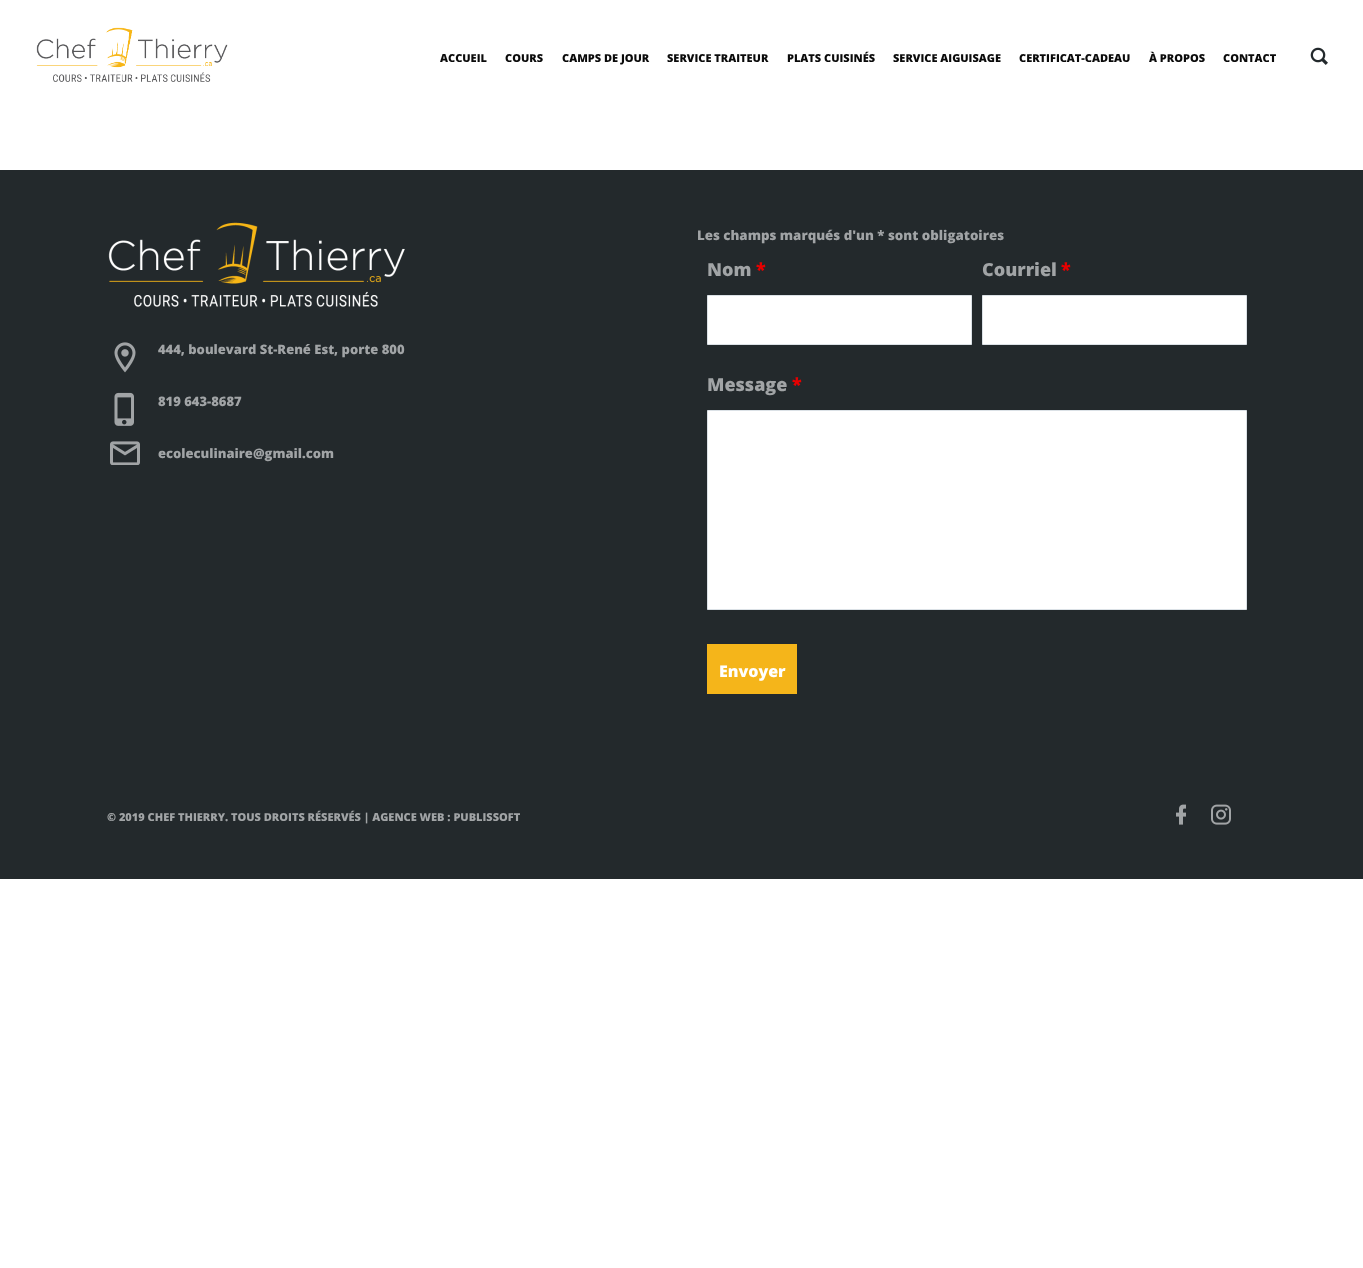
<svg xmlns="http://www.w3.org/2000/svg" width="1363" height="1268">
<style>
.a{font:800 11px Open Sans;fill:#0a0a0a}
.b{font:800 13px Open Sans;fill:#a1a4a6}
.c{font:800 13.3px Open Sans;fill:#a1a4a6}
.d{font:800 18px Open Sans;fill:#a1a4a6}
.e{font:800 18px Open Sans;fill:#e80000}
.f{font:800 16px Open Sans;fill:#fff}
.g{font:800 11px Open Sans;fill:#a1a4a6}
</style>
<rect width="100%" height="100%" fill="#fff"/>
<image href="1.png" x="36" y="27" width="192" height="55"/>
<image href="2.png" x="1310" y="47" width="18" height="18"/>
<path fill="#23292c" d="M0 170h1363v709H0z"/>
<image href="3.png" x="108" y="222" width="297" height="85"/>
<image href="4.png" x="114" y="342" width="22" height="31"/>
<image href="5.png" x="114" y="392" width="20" height="34"/>
<image href="6.png" x="110" y="441" width="30" height="24"/>
<path fill="#fff" stroke="#dbe1e6" d="M707.5 295.5h264v49H707.5z"/>
<path fill="#fff" stroke="#dbe1e6" d="M982.5 295.5h264v49H982.5z"/>
<path fill="#fff" stroke="#dbe1e6" d="M707.5 410.5h539v199H707.5z"/>
<path fill="#f5b51a" d="M707 644h90v50H707z"/>
<image href="7.png" x="1176" y="804" width="10" height="21"/>
<image href="8.png" x="1211" y="804" width="20" height="21"/>
<text class="a" x="440" y="62">ACCUEIL</text>
<text class="a" x="505" y="62">COURS</text>
<text class="a" x="562" y="62">CAMPS DE JOUR</text>
<text class="a" x="667" y="62">SERVICE TRAITEUR</text>
<text class="a" x="787" y="62">PLATS CUISINÉS</text>
<text class="a" x="893" y="62">SERVICE AIGUISAGE</text>
<text class="a" x="1019" y="62">CERTIFICAT-CADEAU</text>
<text class="a" x="1149" y="62">À PROPOS</text>
<text class="a" x="1223" y="62">CONTACT</text>
<text class="b" x="158" y="354">444, boulevard St-René Est, porte 800</text>
<text class="b" x="158" y="406">819 643-8687</text>
<text class="b" x="158" y="458">ecoleculinaire@gmail.com</text>
<text class="c" x="697" y="240">Les champs marqués d'un * sont obligatoires</text>
<text class="d" x="707" y="276">Nom</text>
<text class="e" x="756" y="276">*</text>
<text class="d" x="982" y="276">Courriel</text>
<text class="e" x="1061" y="276">*</text>
<text class="d" x="707" y="391">Message</text>
<text class="e" x="792" y="391">*</text>
<text class="f" x="719" y="677">Envoyer</text>
<text class="g" x="107" y="821">© 2019 CHEF THIERRY. TOUS DROITS RÉSERVÉS | AGENCE WEB : PUBLISSOFT</text>
</svg>
